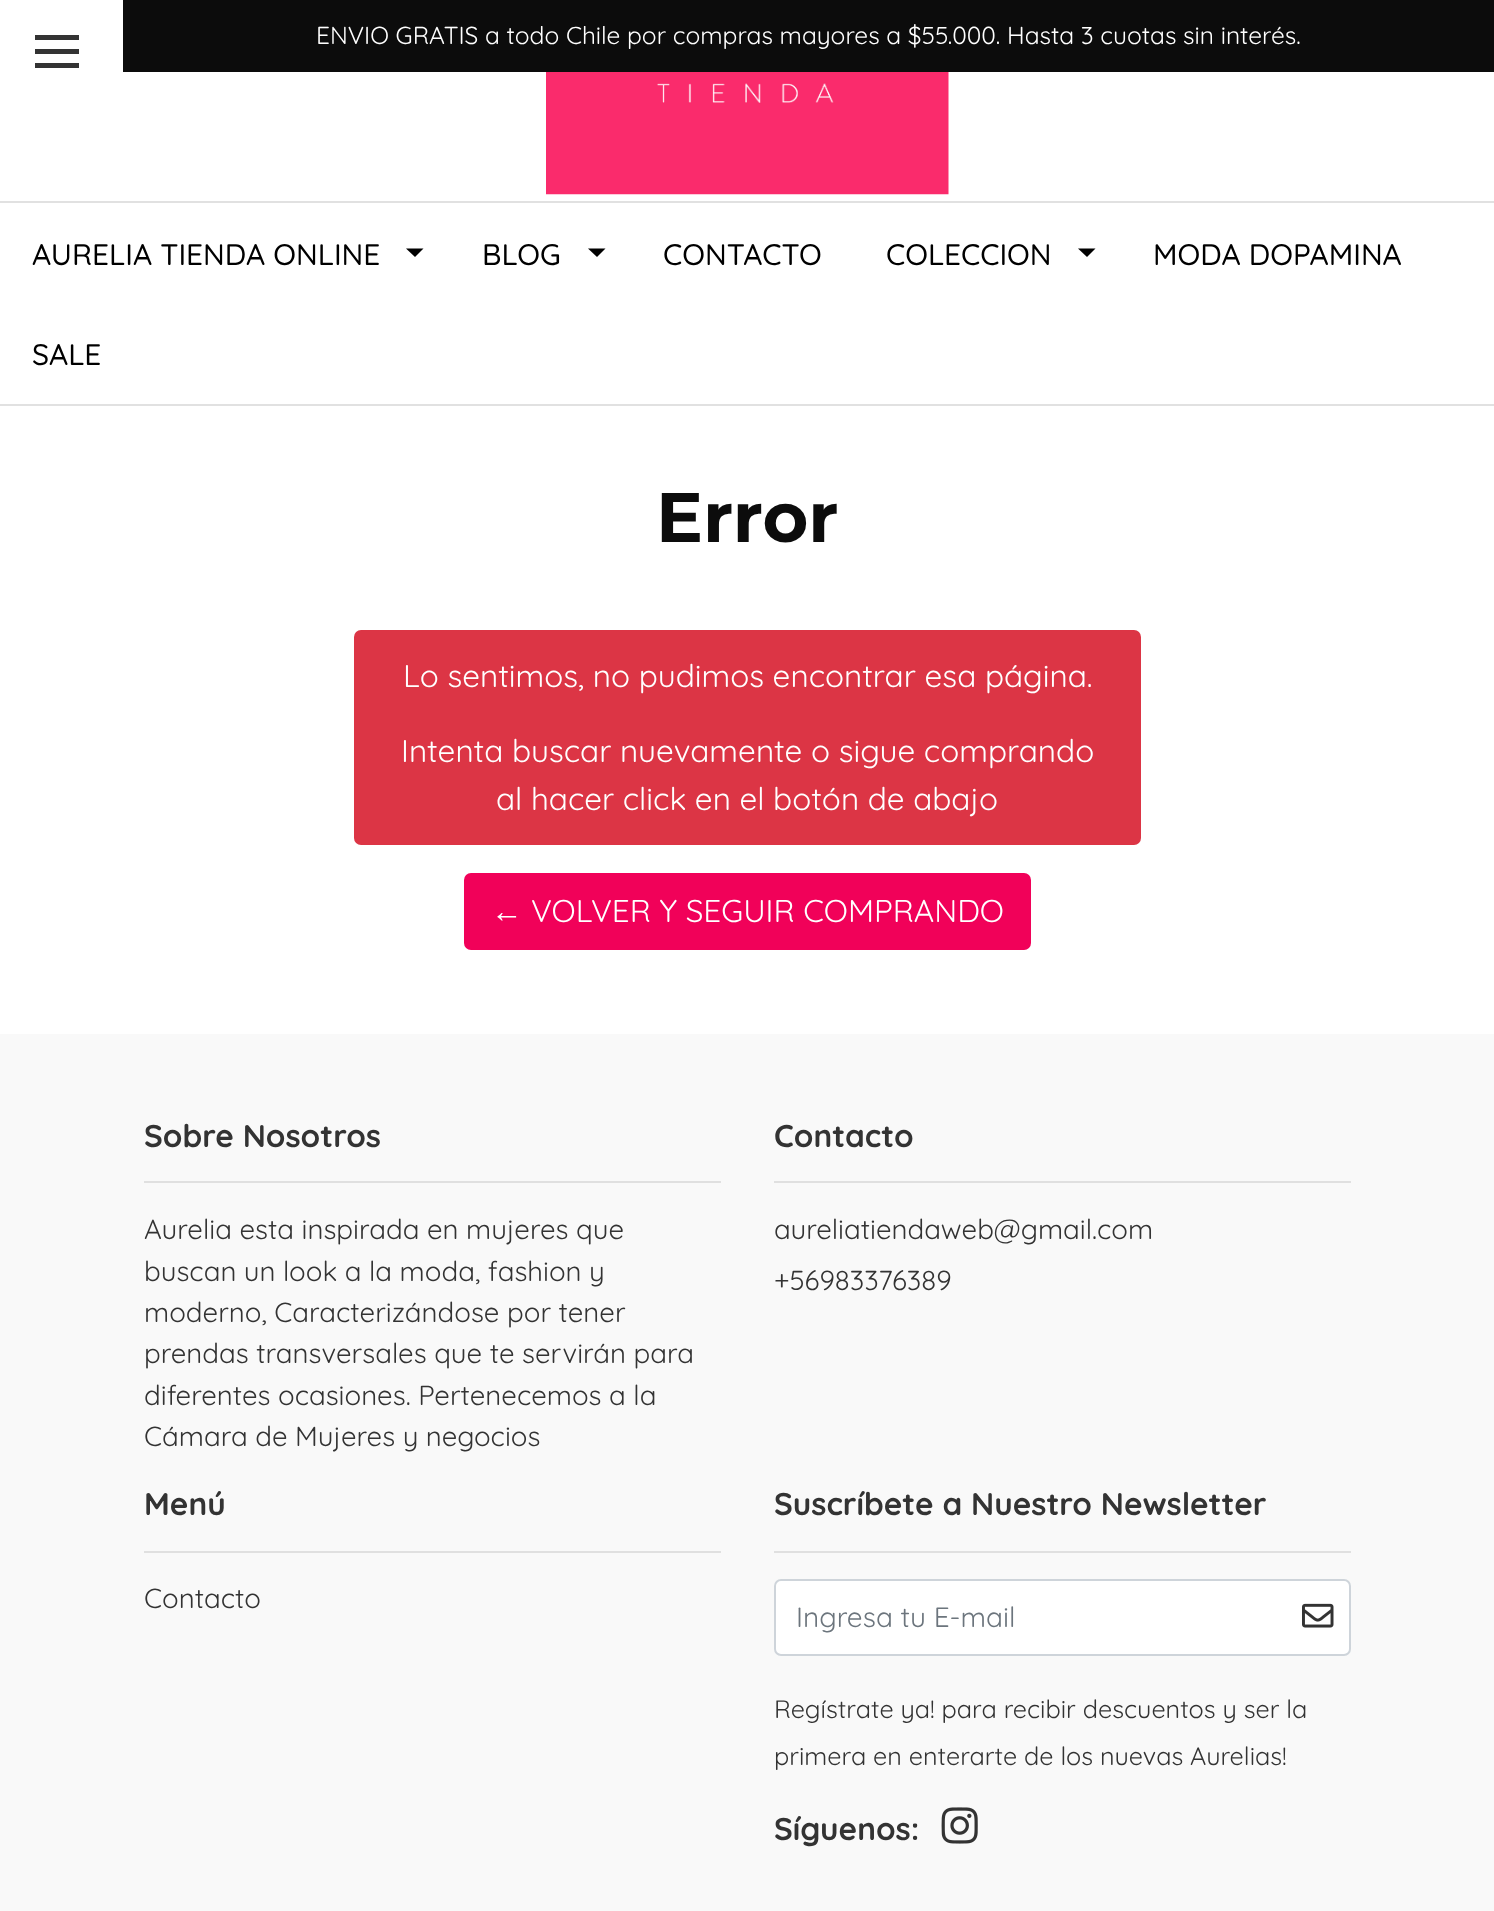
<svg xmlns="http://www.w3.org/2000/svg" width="1494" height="1911">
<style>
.a{font:24.5px Quicksand;fill:#fff}
.b{font:500 29.75px Quicksand;fill:#000}
.c{font:bold 70px Montserrat;fill:#0c0c0c}
.d{font:31.5px Quicksand;fill:#fff}
.e{font:31.5px Liberation Serif;fill:#fff}
.f{font:bold 31.5px Quicksand;fill:#333}
.g{font:27.6px Quicksand;fill:#333}
.h{font:28px Quicksand;fill:#6c757d}
.i{font:25.2px Quicksand;fill:#333}
</style>
<rect width="100%" height="100%" fill="#fff"/>
<path fill="#333" d="M35 35h44v5H35z"/>
<path fill="#333" d="M35 49h44v5H35z"/>
<path fill="#333" d="M35 63h44v5H35z"/>
<path fill="#0c0c0c" d="M123 0h1371v72H123z"/>
<image href="1.png" x="546" y="72" width="403" height="123"/>
<path fill="#e1e1e1" d="M0 201h1494v2H0z"/>
<path fill="#e1e1e1" d="M0 404h1494v2H0z"/>
<path fill="#000" d="M406 248.5h17.5l-8.5 8.5z"/>
<path fill="#000" d="M588 248.5h17.5l-8.5 8.5z"/>
<path fill="#000" d="M1078 248.5h17.5l-8.5 8.5z"/>
<rect fill="#dc3545" x="354" y="630" width="787" height="215" rx="7"/>
<rect fill="#f10159" x="464" y="873" width="567" height="77" rx="7"/>
<path fill="#f9f9f9" d="M0 1034h1494v877H0z"/>
<path fill="#e0e0e0" d="M144 1181h577v2H144z"/>
<path fill="#e0e0e0" d="M774 1181h577v2H774z"/>
<path fill="#e0e0e0" d="M144 1551h577v2H144z"/>
<path fill="#e0e0e0" d="M774 1551h577v2H774z"/>
<rect fill="#fff" stroke="#ced4da" stroke-width="2" x="775" y="1580" width="575" height="75" rx="6"/>
<image href="2.png" x="1302" y="1603" width="32" height="25"/>
<image href="3.png" x="941" y="1807" width="37" height="37"/>
<text class="a" x="316" y="44">ENVIO GRATIS a todo Chile por compras mayores a $55.000. Hasta 3 cuotas sin interés.</text>
<text class="b" x="32" y="265">AURELIA TIENDA ONLINE</text>
<text class="b" x="482" y="265">BLOG</text>
<text class="b" x="663" y="265">CONTACTO</text>
<text class="b" x="886" y="265">COLECCION</text>
<text class="b" x="1153" y="265">MODA DOPAMINA</text>
<text class="b" x="32" y="365">SALE</text>
<text class="c" x="656" y="542">Error</text>
<text class="d" x="403" y="687">Lo sentimos, no pudimos encontrar esa página.</text>
<text class="d" x="401" y="762">Intenta buscar nuevamente o sigue comprando</text>
<text class="d" x="496" y="810">al hacer click en el botón de abajo</text>
<text class="e" x="491" y="922">←</text>
<text class="d" x="531" y="922">VOLVER Y SEGUIR COMPRANDO</text>
<text class="f" x="144" y="1147">Sobre Nosotros</text>
<text class="g" x="144" y="1239">Aurelia esta inspirada en mujeres que</text>
<text class="g" x="144" y="1281">buscan un look a la moda, fashion y</text>
<text class="g" x="144" y="1322">moderno, Caracterizándose por tener</text>
<text class="g" x="144" y="1363">prendas transversales que te servirán para</text>
<text class="g" x="144" y="1405">diferentes ocasiones. Pertenecemos a la</text>
<text class="g" x="144" y="1446">Cámara de Mujeres y negocios</text>
<text class="f" x="774" y="1147">Contacto</text>
<text class="g" x="774" y="1239">aureliatiendaweb@gmail.com</text>
<text class="g" x="774" y="1290">+56983376389</text>
<text class="f" x="144" y="1515">Menú</text>
<text class="g" x="144" y="1608">Contacto</text>
<text class="f" x="774" y="1515">Suscríbete a Nuestro Newsletter</text>
<text class="h" x="796" y="1627">Ingresa tu E-mail</text>
<text class="i" x="774" y="1718">Regístrate ya! para recibir descuentos y ser la</text>
<text class="i" x="774" y="1765">primera en enterarte de los nuevas Aurelias!</text>
<text class="f" x="774" y="1840">Síguenos:</text>
</svg>
